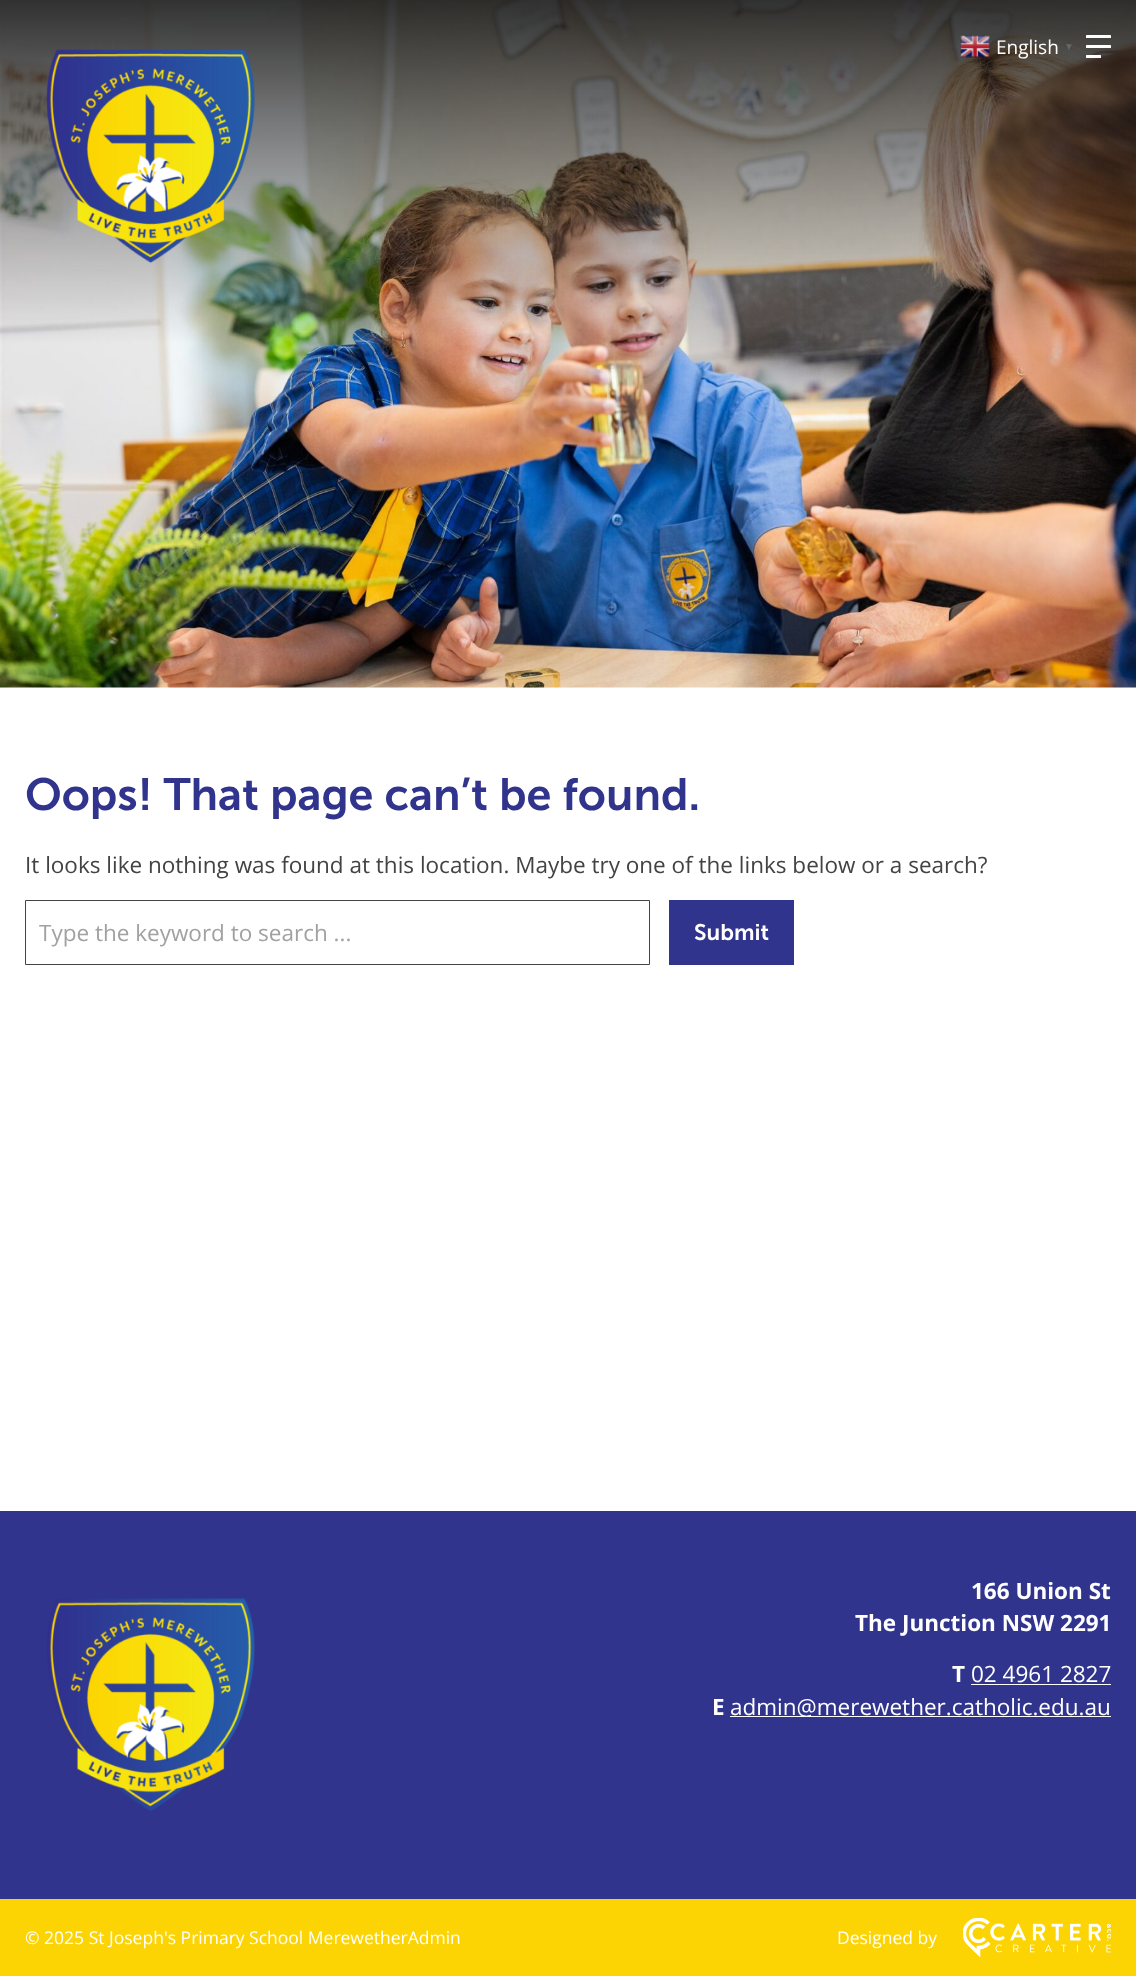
<svg xmlns="http://www.w3.org/2000/svg" width="1136" height="1976">
<style>
.a{font:19px Open Sans;fill:#fff}
.b{font:bold 10px Liberation Sans;fill:#666}
.c{font:600 45px 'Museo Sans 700';fill:#31348d}
.d{font:22.5px Open Sans;fill:#434343}
.e{font:22.5px Open Sans;fill:#a1a1a1}
.f{font:600 22.5px 'Museo Sans 700';fill:#fff}
.g{font:bold 22.5px Open Sans;fill:#fff}
.h{font:22.5px Open Sans;fill:#fff}
.i{font:17.5px Open Sans;fill:#fff}
</style>
<rect width="100%" height="100%" fill="#fff"/>
<image href="3.png" x="0" y="0" width="1136" height="688"/>
<image href="1.png" x="960" y="35" width="30" height="23"/>
<rect fill="#fff" x="1086" y="45" width="25" height="3" rx="0.5"/>
<rect fill="#fff" x="1086" y="35" width="25" height="3" rx="0.5"/>
<rect fill="#fff" x="1086" y="55" width="15" height="3" rx="0.5"/>
<image href="2.png" x="46" y="49" width="209" height="214"/>
<path fill="none" stroke="#434343" d="M25.5 900.5h624v64H25.5z"/>
<path fill="#31348d" d="M669 900h125v65H669z"/>
<path fill="#31348d" d="M0 1511h1136v388H0z"/>
<image href="4.png" x="47" y="1598" width="208" height="213"/>
<path fill="#fff" d="M971 1684h140v1H971z"/>
<path fill="#fff" d="M730 1716h381v1H730z"/>
<path fill="#fcd404" d="M0 1899h1136v77H0z"/>
<image href="5.png" x="963" y="1918" width="148" height="40"/>
<text class="a" x="996" y="54">English</text>
<text class="b" x="1064" y="50">▼</text>
<text class="c" x="25" y="810">Oops! That page can’t be found.</text>
<text class="d" x="25" y="873">It looks like nothing was found at this location. Maybe try one of the links below or a search?</text>
<text class="e" x="39" y="941">Type the keyword to search ...</text>
<text class="f" x="694" y="940">Submit</text>
<text class="g" x="971" y="1599">166 Union St</text>
<text class="g" x="855" y="1631">The Junction NSW 2291</text>
<text class="g" x="952" y="1682">T</text>
<text class="h" x="971" y="1682">02 4961 2827</text>
<text class="g" x="712" y="1715">E</text>
<text class="h" x="730" y="1715">admin@merewether.catholic.edu.au</text>
<text class="i" x="25" y="1944">© 2025 St Joseph's Primary School MerewetherAdmin</text>
<text class="i" x="837" y="1944">Designed by</text>
</svg>
